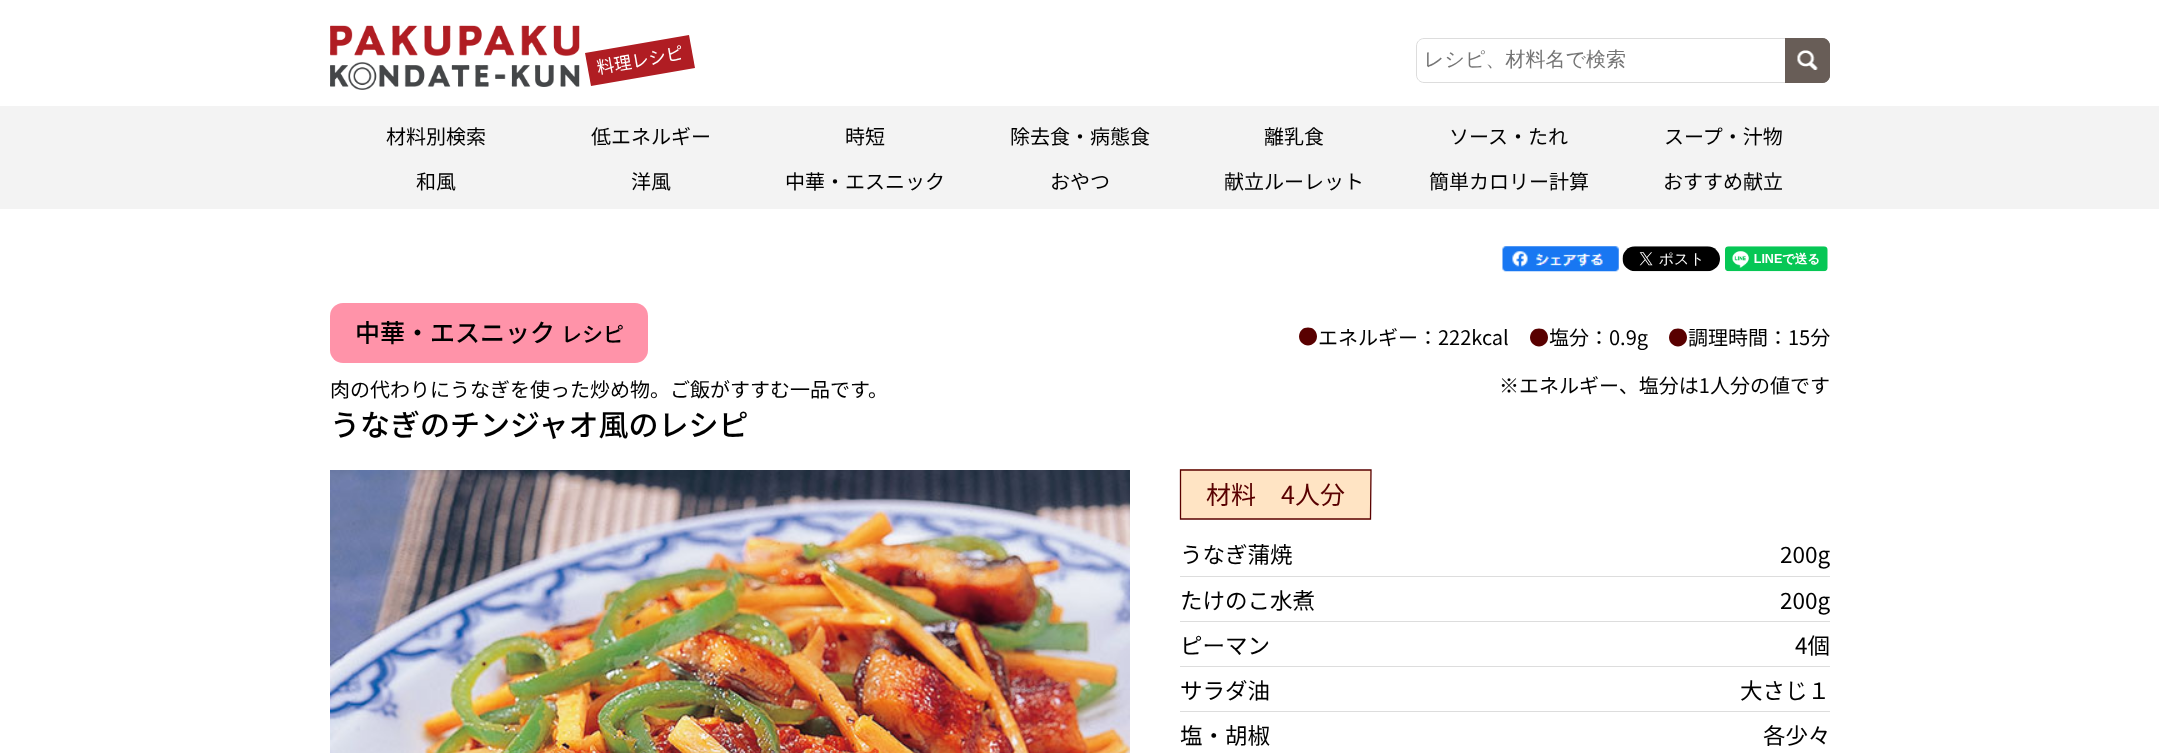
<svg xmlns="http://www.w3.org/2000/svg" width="2159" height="753">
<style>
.a{font:17.5px Noto Sans JP;fill:#fff}
.b{font:500 20px WenQuanYi Zen Hei;fill:#757575}
.c{font:20px Noto Sans JP;fill:#000}
.d{font:500 25px Noto Sans JP;fill:#000}
.e{font:500 21px Noto Sans JP;fill:#000}
.f{font:500 30px Noto Sans JP;fill:#000}
.g{font:20px Noto Sans JP;fill:#590000}
.h{font:25px Noto Sans JP;fill:#590000}
.i{font:22.5px Noto Sans JP;fill:#000}
</style>
<rect width="100%" height="100%" fill="#fff"/>
<image href="1.png" x="330" y="25" width="250" height="65"/>
<path fill="#b01d23" d="M585 53l104-18l6 33l-104 18z"/>
<path fill="none" stroke="#ddd" d="M1424 38.5h366.5v44h-366.5c-4 0-7.5-3.5-7.5-7.5v-29c0-4 3.5-7.5 7.5-7.5z"/>
<path fill="#685d57" d="M1785 38h37c4.5 0 8 3.5 8 8v29c0 4.5-3.5 8-8 8h-37z"/>
<image href="2.png" x="1797" y="50" width="21" height="20"/>
<path fill="none" stroke="#685d57" d="M1785.5 38.5h36.5c4 0 7.5 3.5 7.5 7.5v29c0 4-3.5 7.5-7.5 7.5h-36.5z"/>
<path fill="#f3f3f3" d="M0 106h2159v103H0z"/>
<image href="3.png" x="1502" y="246" width="117" height="26"/>
<image href="4.png" x="1622" y="246" width="98" height="26"/>
<image href="5.png" x="1725" y="246" width="103" height="26"/>
<rect fill="#ff93a9" x="330" y="303" width="318" height="60" rx="13"/>
<image href="6.png" x="330" y="470" width="800" height="283"/>
<path fill="#ffe4c4" d="M1180 469l191 1v50l-191-1z"/>
<path fill="none" stroke="#590000" stroke-width="1.3" d="M1180.5 470h190.5l-.5 49h-190z"/>
<path fill="#ddd" d="M1180 576h650v1H1180z"/>
<path fill="#ddd" d="M1180 621h650v1H1180z"/>
<path fill="#ddd" d="M1180 666h650v1H1180z"/>
<path fill="#ddd" d="M1180 711h650v1H1180z"/>
<text class="a" x="598" y="74" transform="rotate(-10 598 74)">料理レシピ</text>
<text class="b" x="1424" y="66">レシピ、材料名で検索</text>
<text class="c" x="386" y="144">材料別検索</text>
<text class="c" x="591" y="144">低エネルギー</text>
<text class="c" x="845" y="144">時短</text>
<text class="c" x="1010" y="144">除去食・病態食</text>
<text class="c" x="1264" y="144">離乳食</text>
<text class="c" x="1449" y="144">ソース・たれ</text>
<text class="c" x="1664" y="144">スープ・汁物</text>
<text class="c" x="416" y="189">和風</text>
<text class="c" x="631" y="189">洋風</text>
<text class="c" x="785" y="189">中華・エスニック</text>
<text class="c" x="1050" y="189">おやつ</text>
<text class="c" x="1224" y="189">献立ルーレット</text>
<text class="c" x="1429" y="189">簡単カロリー計算</text>
<text class="c" x="1663" y="189">おすすめ献立</text>
<text class="d" x="355" y="342">中華・エスニック</text>
<text class="e" x="561" y="342">レシピ</text>
<text class="c" x="330" y="397">肉の代わりにうなぎを使った炒め物。ご飯がすすむ一品です。</text>
<text class="f" x="330" y="436">うなぎのチンジャオ風のレシピ</text>
<text class="g" x="1298" y="344">●</text>
<text class="c" x="1318" y="345">エネルギー：222kcal</text>
<text class="g" x="1529" y="345">●</text>
<text class="c" x="1549" y="345">塩分：0.9g</text>
<text class="g" x="1668" y="345">●</text>
<text class="c" x="1688" y="345">調理時間：15分</text>
<text class="c" x="1499" y="393">※エネルギー、塩分は1人分の値です</text>
<text class="h" x="1206" y="504">材料　4人分</text>
<text class="i" x="1180" y="563">うなぎ蒲焼</text>
<text class="i" x="1780" y="563">200g</text>
<text class="i" x="1180" y="609">たけのこ水煮</text>
<text class="i" x="1780" y="609">200g</text>
<text class="i" x="1180" y="654">ピーマン</text>
<text class="i" x="1795" y="654">4個</text>
<text class="i" x="1180" y="699">サラダ油</text>
<text class="i" x="1740" y="699">大さじ１</text>
<text class="i" x="1180" y="744">塩・胡椒</text>
<text class="i" x="1763" y="744">各少々</text>
</svg>
